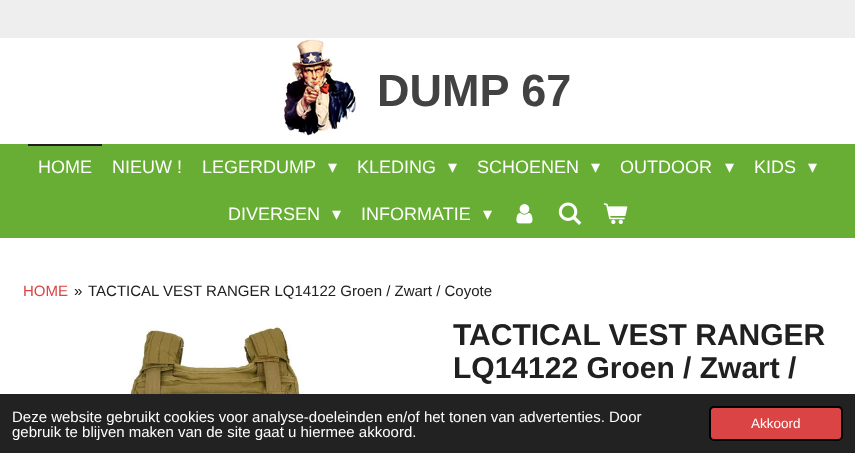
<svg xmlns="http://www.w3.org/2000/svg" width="855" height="453">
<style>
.a{font:bold 45px Liberation Sans;fill:#424242}
.b{font:18px Liberation Sans;fill:#fdfefc}
.c{font:18px DejaVu Sans;fill:#fdfefc}
.d{font:15px Liberation Sans;fill:#da4444}
.e{font:15px Liberation Sans;fill:#202020}
.f{font:bold 30px Liberation Sans;fill:#202020}
.g{font:15px Liberation Sans;fill:#fdfefc}
.h{font:13.5px Liberation Sans;fill:#fdfefc}
</style>
<rect width="100%" height="100%" fill="#fff"/>
<path fill="#eee" d="M0 0h855v38H0z"/>
<image href="1.png" x="284" y="39" width="73" height="97"/>
<path fill="#68ae34" d="M0 144h855v94H0z"/>
<path fill="#202020" d="M28 144h74v2H28z"/>
<image href="2.png" x="516" y="204" width="17" height="20"/>
<image href="3.png" x="558" y="202" width="24" height="23"/>
<image href="4.png" x="603" y="203" width="25" height="21"/>
<image href="5.png" x="114" y="326" width="204" height="68"/>
<path fill="#222" d="M0 394h855v59H0z"/>
<rect fill="#da4444" stroke="#000" stroke-width="2" x="710" y="407" width="132" height="33" rx="4"/>
<text class="a" x="377" y="106">DUMP 67</text>
<text class="b" x="38" y="173">HOME</text>
<text class="b" x="112" y="173">NIEUW !</text>
<text class="b" x="202" y="173">LEGERDUMP</text>
<text class="c" x="328" y="173">▾</text>
<text class="b" x="357" y="173">KLEDING</text>
<text class="c" x="448" y="173">▾</text>
<text class="b" x="477" y="173">SCHOENEN</text>
<text class="c" x="591" y="173">▾</text>
<text class="b" x="620" y="173">OUTDOOR</text>
<text class="c" x="725" y="173">▾</text>
<text class="b" x="754" y="173">KIDS</text>
<text class="c" x="808" y="173">▾</text>
<text class="b" x="228" y="220">DIVERSEN</text>
<text class="c" x="332" y="220">▾</text>
<text class="b" x="361" y="220">INFORMATIE</text>
<text class="c" x="483" y="220">▾</text>
<text class="d" x="23" y="296">HOME</text>
<text class="e" x="74" y="296">»</text>
<text class="e" x="88" y="296">TACTICAL VEST RANGER LQ14122 Groen / Zwart / Coyote</text>
<text class="f" x="453" y="345">TACTICAL VEST RANGER</text>
<text class="f" x="453" y="378">LQ14122 Groen / Zwart /</text>
<text class="g" x="12" y="422">Deze website gebruikt cookies voor analyse-doeleinden en/of het tonen van advertenties. Door</text>
<text class="g" x="12" y="437">gebruik te blijven maken van de site gaat u hiermee akkoord.</text>
<text class="h" x="751" y="428">Akkoord</text>
</svg>
